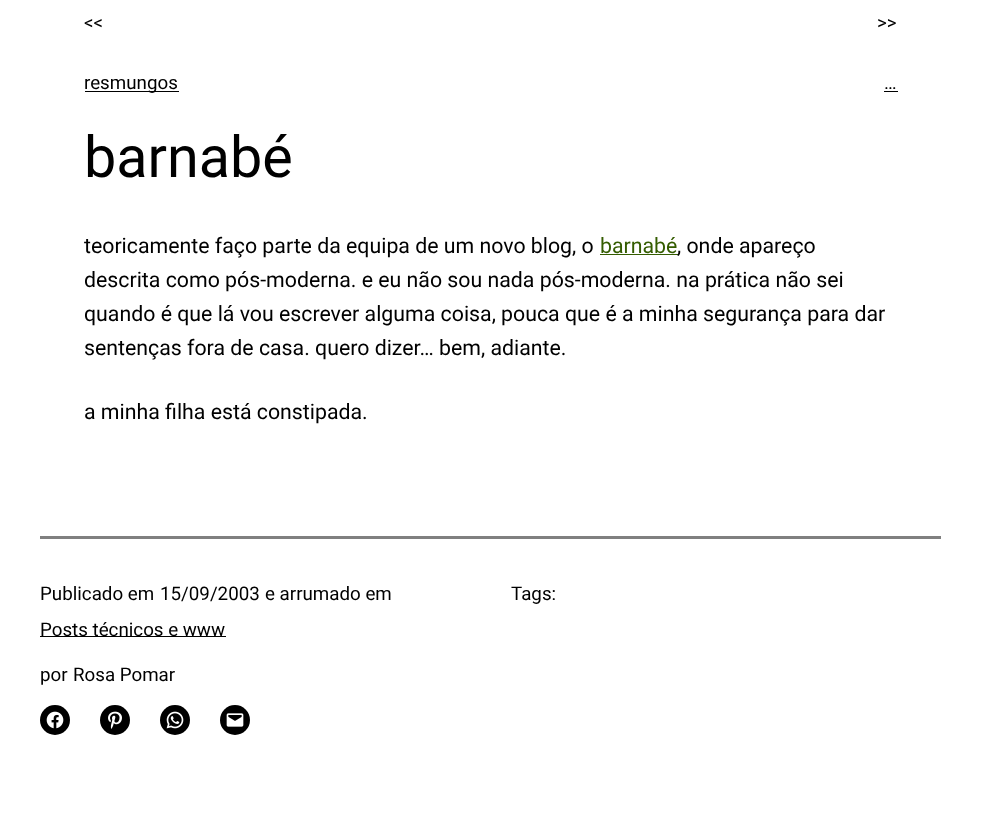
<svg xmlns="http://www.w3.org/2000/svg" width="981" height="822">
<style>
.a{font:18.75px Roboto;fill:#000}
.b{font:57.5px Roboto;fill:#000}
.c{font:21.3px Roboto;fill:#000}
.d{font:21.3px Roboto;fill:#345c00}
</style>
<rect width="100%" height="100%" fill="#fff"/>
<path fill="#000" d="M85 91h94v1H85z"/>
<path fill="#000" d="M884 91h14v1H884z"/>
<path fill="#345c00" d="M600 254h78v1H600z"/>
<path fill="#808080" d="M40 536h901v3H40z"/>
<path fill="#000" d="M40 636h186v1H40z"/>
<circle fill="#000" cx="55" cy="720" r="15"/>
<image href="1.png" x="46" y="711" width="18" height="18"/>
<circle fill="#000" cx="115" cy="720" r="15"/>
<image href="2.png" x="108" y="711" width="14" height="18"/>
<circle fill="#000" cx="175" cy="720" r="15"/>
<image href="3.png" x="166" y="711" width="18" height="18"/>
<circle fill="#000" cx="235" cy="720" r="15"/>
<image href="4.png" x="226" y="713" width="18" height="14"/>
<text class="a" x="84" y="29">&lt;&lt;</text>
<text class="a" x="84" y="89">resmungos</text>
<text class="a" x="877" y="29">&gt;&gt;</text>
<text class="a" x="884" y="89">…</text>
<text class="b" x="84" y="177">barnabé</text>
<text class="c" x="84" y="253">teoricamente faço parte da equipa de um novo blog, o</text>
<text class="d" x="600" y="253">barnabé</text>
<text class="c" x="677" y="253">, onde apareço</text>
<text class="c" x="84" y="287">descrita como pós-moderna. e eu não sou nada pós-moderna. na prática não sei</text>
<text class="c" x="84" y="321">quando é que lá vou escrever alguma coisa, pouca que é a minha segurança para dar</text>
<text class="c" x="84" y="355">sentenças fora de casa. quero dizer… bem, adiante.</text>
<text class="c" x="84" y="419">a minha filha está constipada.</text>
<text class="a" x="40" y="600">Publicado em</text>
<text class="a" x="160" y="600">15/09/2003</text>
<text class="a" x="265" y="600">e arrumado em</text>
<text class="a" x="40" y="636">Posts técnicos e www</text>
<text class="a" x="40" y="681">por</text>
<text class="a" x="73" y="681">Rosa Pomar</text>
<text class="a" x="511" y="600">Tags:</text>
</svg>
